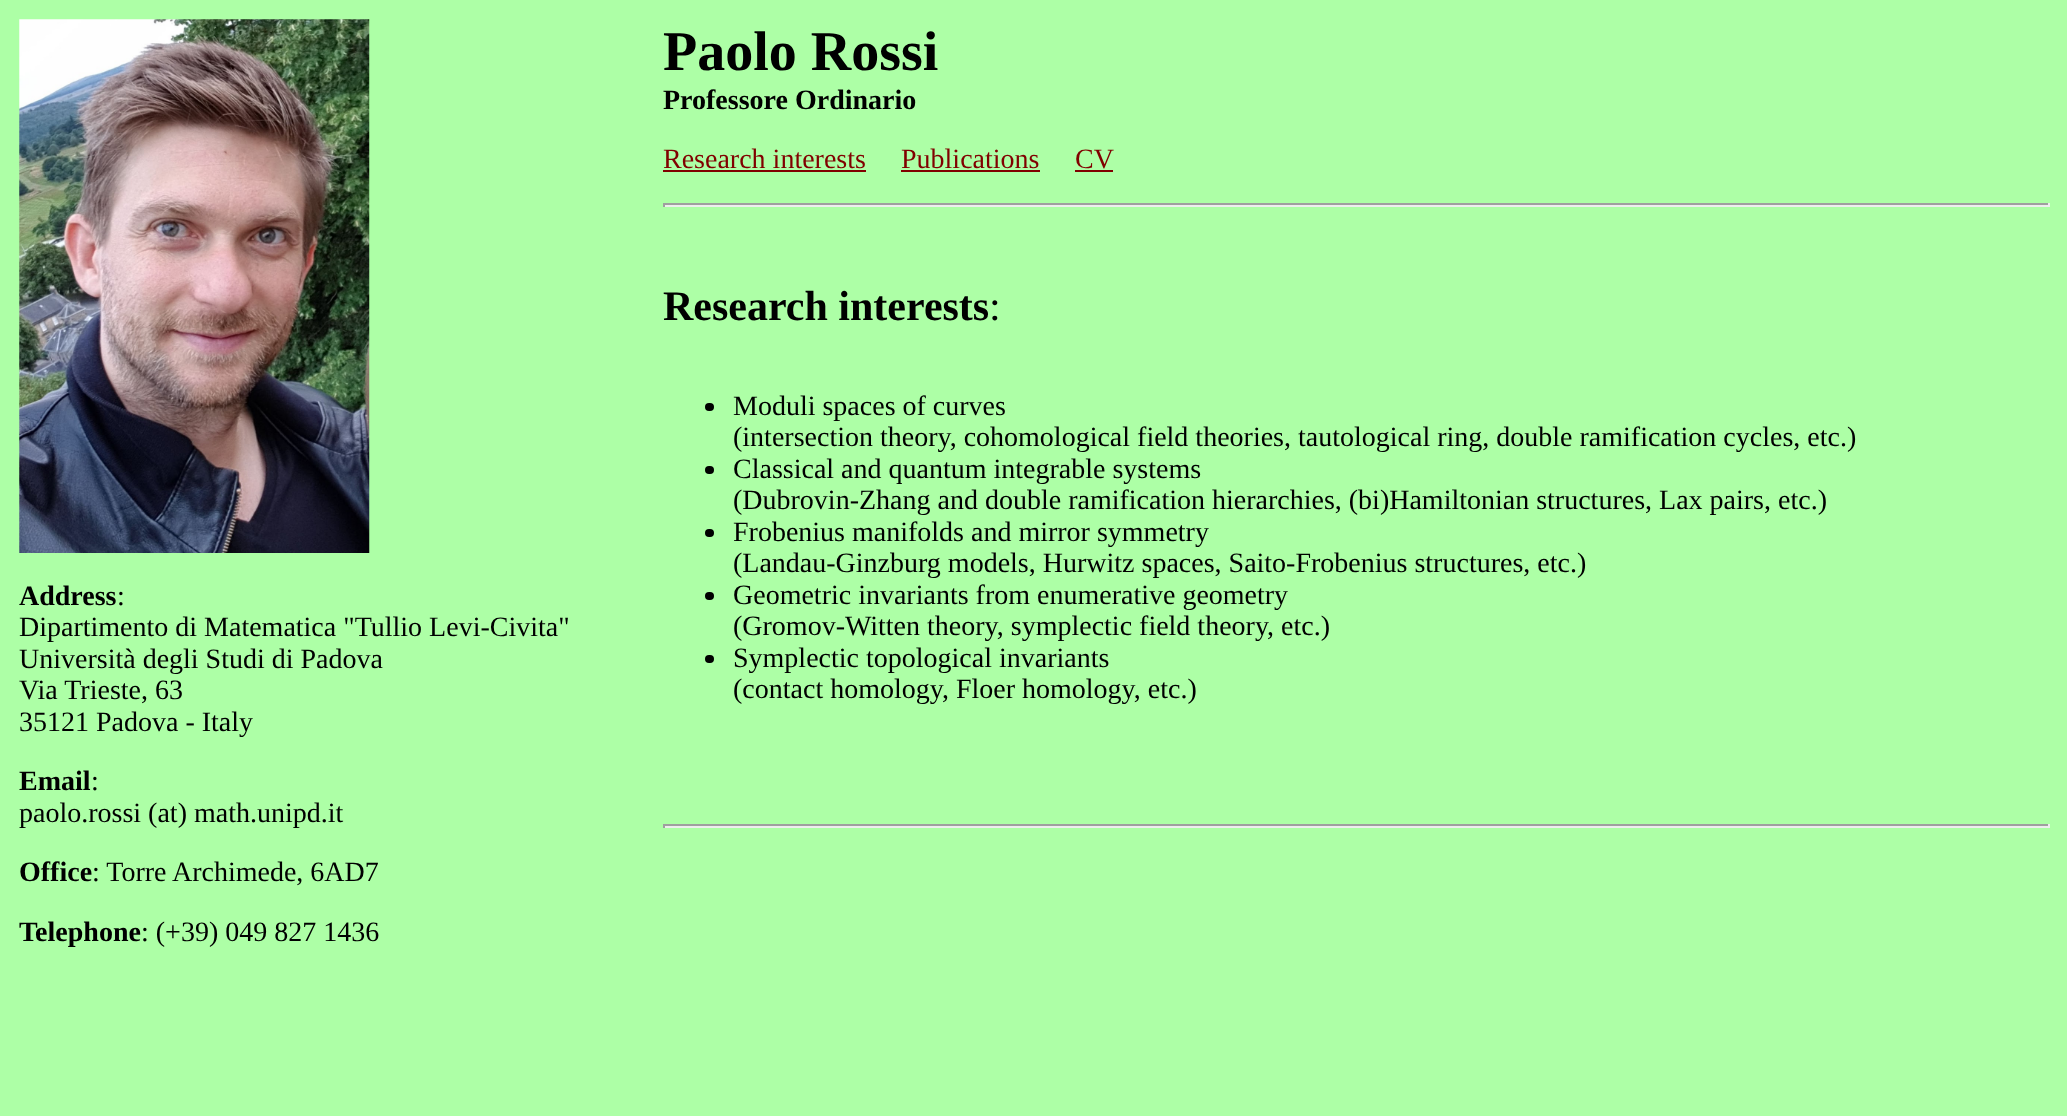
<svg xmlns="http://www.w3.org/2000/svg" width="2067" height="1116">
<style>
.a{font:bold 56px Liberation Serif;fill:#000}
.b{font:bold 28px Liberation Serif;fill:#000}
.c{font:28px Liberation Serif;fill:#800000}
.d{font:bold 42px Liberation Serif;fill:#000}
.e{font:42px Liberation Serif;fill:#000}
.f{font:28px Liberation Serif;fill:#000}
</style>
<rect width="100%" height="100%" fill="#adffa6"/>
<path fill="#800000" d="M663 170h203v2H663z"/>
<path fill="#800000" d="M901 170h139v2H901z"/>
<path fill="#800000" d="M1075 170h38v2H1075z"/>
<path fill="#9f9f9f" d="M663 203h1386v2H663z"/>
<path fill="#eee" d="M2048 203h2v4H2048z"/>
<path fill="#eee" d="M663 205h1386v2H663z"/>
<path fill="#9f9f9f" d="M663 203h2v4H663z"/>
<rect fill="#000" x="705" y="403" width="9" height="8" rx="4"/>
<rect fill="#000" x="705" y="466" width="9" height="8" rx="4"/>
<rect fill="#000" x="705" y="529" width="9" height="8" rx="4"/>
<rect fill="#000" x="705" y="592" width="9" height="8" rx="4"/>
<rect fill="#000" x="705" y="655" width="9" height="8" rx="4"/>
<path fill="#9f9f9f" d="M663 824h1386v2H663z"/>
<path fill="#eee" d="M2048 824h2v4H2048z"/>
<path fill="#eee" d="M663 826h1386v2H663z"/>
<path fill="#9f9f9f" d="M663 824h2v4H663z"/>
<image href="1.png" x="19" y="19" width="351" height="534"/>
<text class="a" x="663" y="70">Paolo Rossi</text>
<text class="b" x="663" y="109">Professore Ordinario</text>
<text class="c" x="663" y="168">Research interests</text>
<text class="c" x="901" y="168">Publications</text>
<text class="c" x="1075" y="168">CV</text>
<text class="d" x="663" y="320">Research interests</text>
<text class="e" x="989" y="320">:</text>
<text class="f" x="733" y="415">Moduli spaces of curves</text>
<text class="f" x="733" y="446">(intersection theory, cohomological field theories, tautological ring, double ramification cycles, etc.)</text>
<text class="f" x="733" y="478">Classical and quantum integrable systems</text>
<text class="f" x="733" y="509">(Dubrovin-Zhang and double ramification hierarchies, (bi)Hamiltonian structures, Lax pairs, etc.)</text>
<text class="f" x="733" y="541">Frobenius manifolds and mirror symmetry</text>
<text class="f" x="733" y="572">(Landau-Ginzburg models, Hurwitz spaces, Saito-Frobenius structures, etc.)</text>
<text class="f" x="733" y="604">Geometric invariants from enumerative geometry</text>
<text class="f" x="733" y="635">(Gromov-Witten theory, symplectic field theory, etc.)</text>
<text class="f" x="733" y="667">Symplectic topological invariants</text>
<text class="f" x="733" y="698">(contact homology, Floer homology, etc.)</text>
<text class="b" x="19" y="605">Address</text>
<text class="f" x="117" y="605">:</text>
<text class="f" x="19" y="636">Dipartimento di Matematica "Tullio Levi-Civita"</text>
<text class="f" x="19" y="668">Università degli Studi di Padova</text>
<text class="f" x="19" y="699">Via Trieste, 63</text>
<text class="f" x="19" y="731">35121 Padova - Italy</text>
<text class="b" x="19" y="790">Email</text>
<text class="f" x="91" y="790">:</text>
<text class="f" x="19" y="822">paolo.rossi (at) math.unipd.it</text>
<text class="b" x="19" y="881">Office</text>
<text class="f" x="92" y="881">: Torre Archimede, 6AD7</text>
<text class="b" x="19" y="941">Telephone</text>
<text class="f" x="141" y="941">: (+39) 049 827 1436</text>
</svg>
